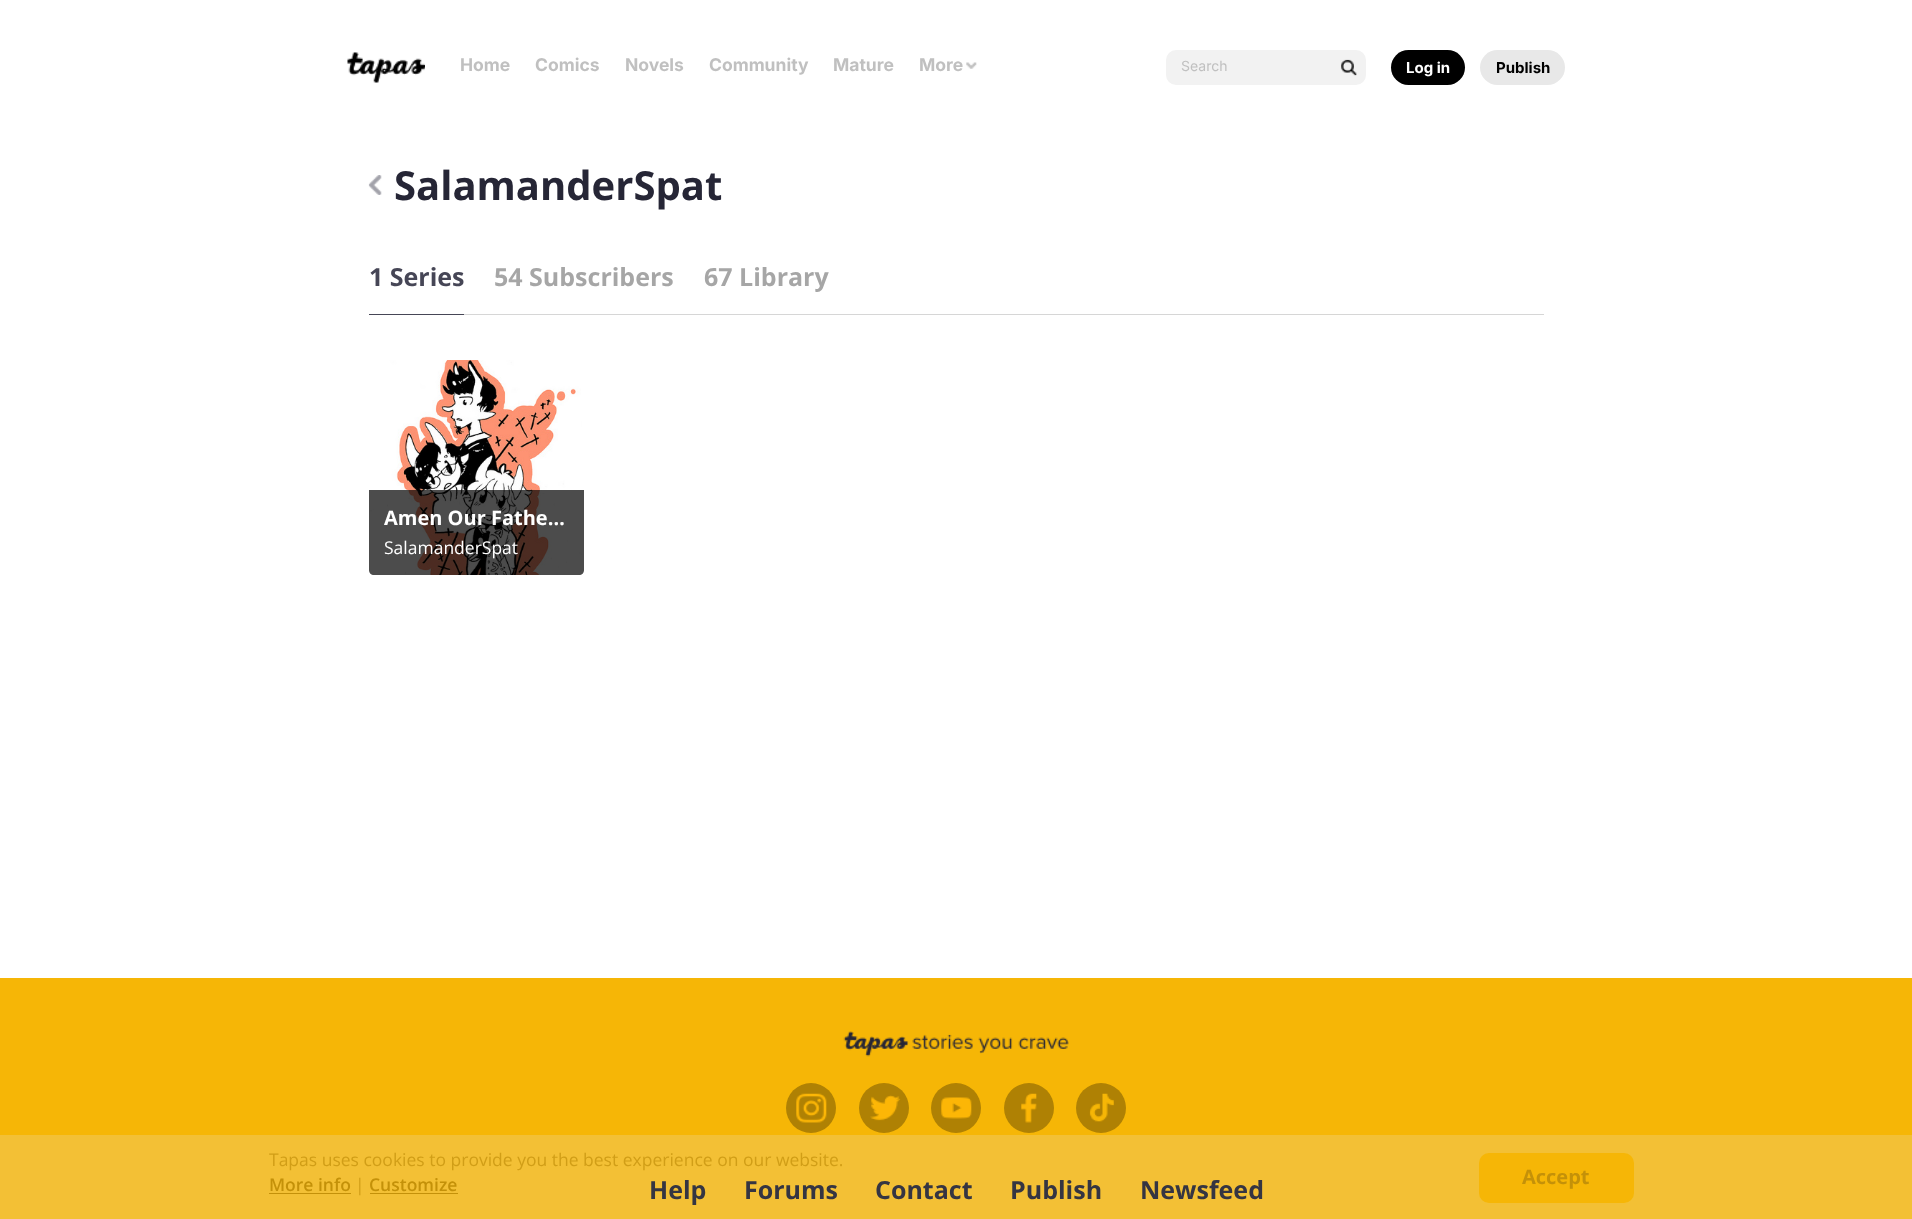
<svg xmlns="http://www.w3.org/2000/svg" width="1912" height="1219">
<style>
.a{font:bold 17.5px Inter;fill:#c0c0c0}
.b{font:14px Inter;fill:#c0c0c0}
.c{font:bold 15px Inter;fill:#fff}
.d{font:bold 15px Inter;fill:#000}
.e{font:bold 40px Open Sans;fill:#262636}
.f{font:bold 25px Open Sans;fill:#464656}
.g{font:bold 25px Open Sans;fill:#a6a6a6}
.h{font:bold 20px Open Sans;fill:#fff}
.i{font:17.5px Open Sans;fill:#fff}
.j{font:17.5px Open Sans;fill:#d19e17}
.k{font:600 17.5px Open Sans;fill:#c49109}
.l{font:bold 20px Open Sans;fill:#c49109}
.m{font:bold 25px Open Sans;fill:#353542}
</style>
<rect width="100%" height="100%" fill="#fff"/>
<image href="1.png" x="347" y="52" width="78" height="31"/>
<image href="2.png" x="966" y="62" width="11" height="7"/>
<rect fill="#f2f2f2" x="1166" y="50" width="200" height="35" rx="10"/>
<image href="3.png" x="1341" y="59" width="16" height="17"/>
<rect fill="#000" x="1391" y="50" width="74" height="35" rx="17.5"/>
<rect fill="#e8e8e8" x="1480" y="50" width="85" height="35" rx="17.5"/>
<image href="4.png" x="368" y="175" width="14" height="20"/>
<path fill="#d6d6d6" d="M464 314h1080v1H464z"/>
<path fill="#464656" d="M369 314h95v1H369z"/>
<image href="5.png" x="370" y="360" width="212" height="215"/>
<path fill="#000000b3" d="M369 490h215v80c0 3-2 5-5 5h-205c-3 0-5-2-5-5z"/>
<path fill="#f3c035" d="M0 1135h1912v84H0z"/>
<path fill="#c49109" d="M269 1193h82v1H269z"/>
<path fill="#c49109" d="M370 1193h88v1H370z"/>
<rect fill="#f6b606" x="1479" y="1153" width="155" height="50" rx="10"/>
<path fill="#f6b606" d="M0 978h1912v157H0z"/>
<image href="6.png" x="843" y="1031" width="226" height="26"/>
<circle fill="#af8104" cx="811" cy="1108" r="25"/>
<image href="7.png" x="796" y="1093" width="31" height="30"/>
<circle fill="#af8104" cx="884" cy="1108" r="25"/>
<image href="8.png" x="870" y="1095" width="31" height="26"/>
<circle fill="#af8104" cx="956" cy="1108" r="25"/>
<image href="9.png" x="941" y="1097" width="31" height="22"/>
<circle fill="#af8104" cx="1029" cy="1108" r="25"/>
<image href="10.png" x="1021" y="1093" width="16" height="30"/>
<circle fill="#af8104" cx="1101" cy="1108" r="25"/>
<image href="11.png" x="1089" y="1093" width="25" height="29"/>
<text class="a" x="460" y="71">Home</text>
<text class="a" x="535" y="71">Comics</text>
<text class="a" x="625" y="71">Novels</text>
<text class="a" x="709" y="71">Community</text>
<text class="a" x="833" y="71">Mature</text>
<text class="a" x="919" y="71">More</text>
<text class="b" x="1181" y="71">Search</text>
<text class="c" x="1406" y="73">Log in</text>
<text class="d" x="1496" y="73">Publish</text>
<text class="e" x="394" y="200">SalamanderSpat</text>
<text class="f" x="369" y="286">1 Series</text>
<text class="g" x="494" y="286">54 Subscribers</text>
<text class="g" x="704" y="286">67 Library</text>
<text class="h" x="384" y="525">Amen Our Fathe…</text>
<text class="i" x="384" y="554">SalamanderSpat</text>
<text class="j" x="269" y="1166">Tapas uses cookies to provide you the best experience on our website.</text>
<text class="k" x="269" y="1191">More info</text>
<text class="j" x="355" y="1191">|</text>
<text class="k" x="369" y="1191">Customize</text>
<text class="l" x="1522" y="1184">Accept</text>
<text class="m" x="649" y="1199">Help</text>
<text class="m" x="744" y="1199">Forums</text>
<text class="m" x="875" y="1199">Contact</text>
<text class="m" x="1010" y="1199">Publish</text>
<text class="m" x="1140" y="1199">Newsfeed</text>
</svg>
